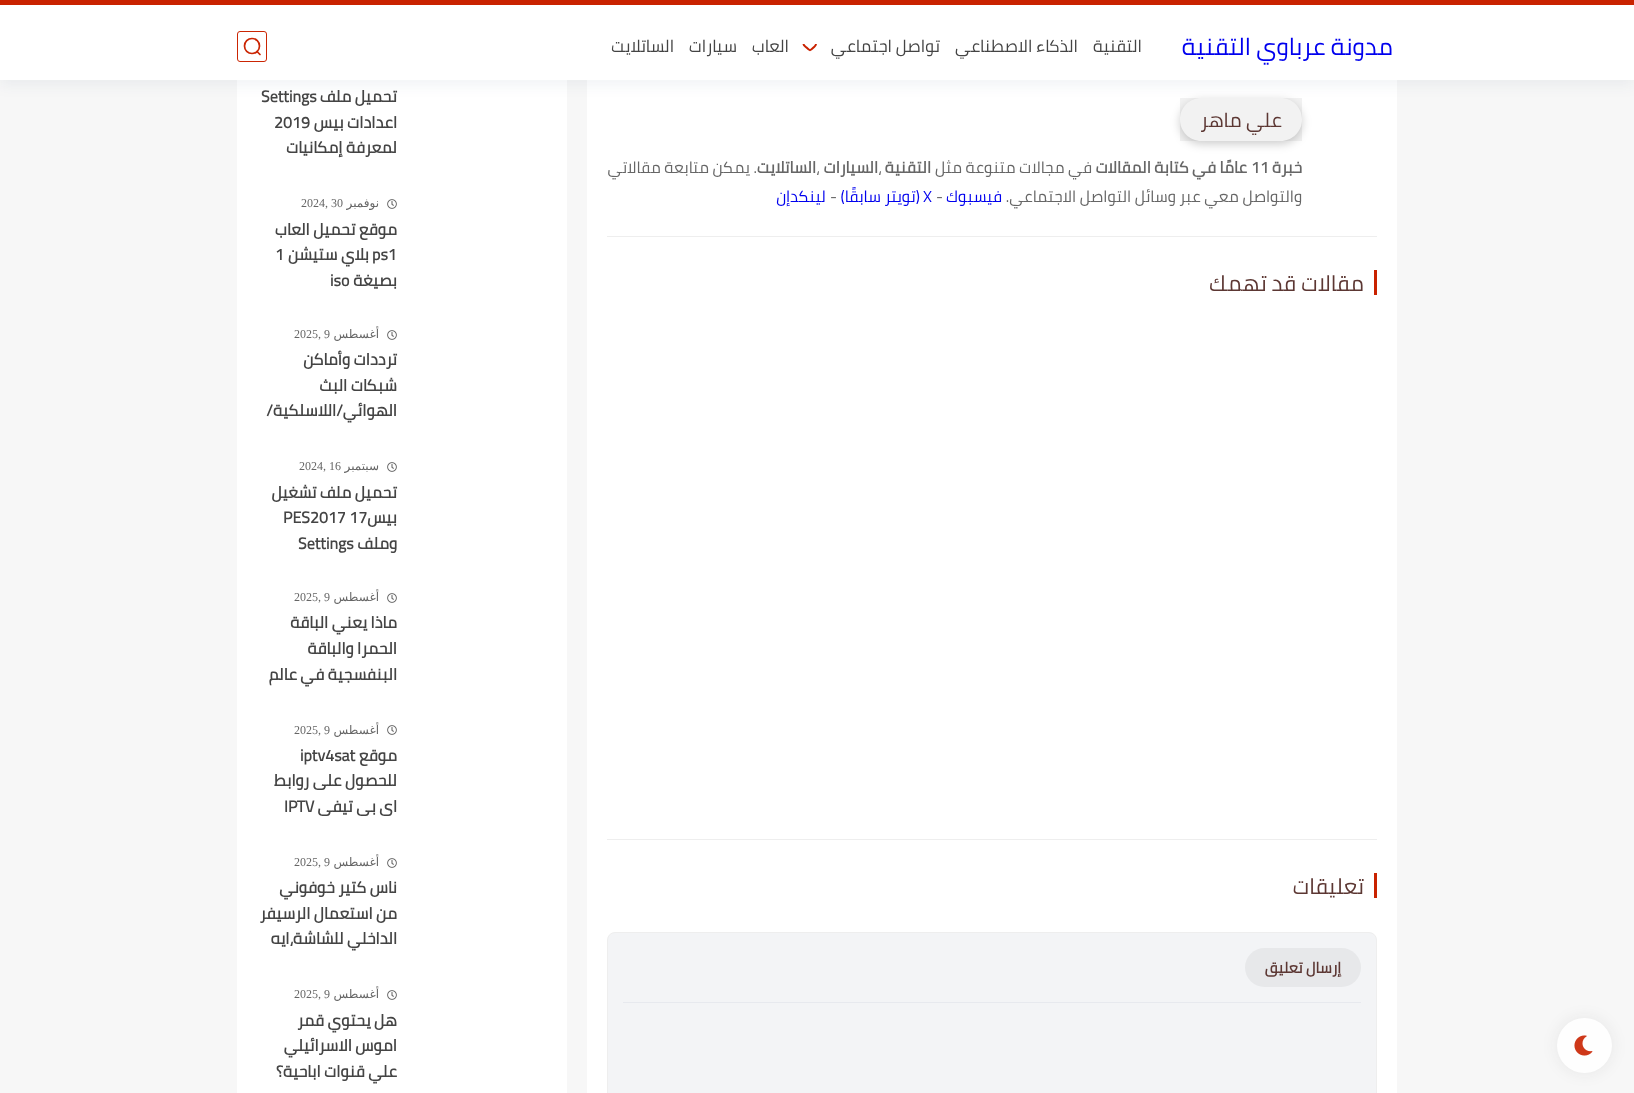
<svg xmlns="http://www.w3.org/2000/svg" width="1634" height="1093">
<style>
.a{font:24px Cairo;direction:rtl;fill:#00e}
.b{font:17px Cairo;direction:rtl;fill:#444}
.c{font:20px Cairo;direction:rtl;fill:#5c3733}
.d{font:bold 16px Cairo;direction:rtl;fill:#666}
.e{font:bold 16px Cairo;fill:#666}
.f{font:16px Cairo;direction:rtl;fill:#666}
.g{font:16px Cairo;fill:#666}
.h{font:16px Cairo;direction:rtl;fill:#00e}
.i{font:16px Cairo;fill:#00e}
.j{font:22px Cairo;direction:rtl;fill:#5c3733}
.k{font:bold 15px Cairo;direction:rtl;fill:#5c3733}
.l{font:bold 16px Cairo;direction:rtl;fill:#444}
.m{font:bold 16px Cairo;fill:#444}
.n{font:12px DejaVu Sans;direction:rtl;fill:#666}
.o{font:12px Liberation Serif;fill:#666}
</style>
<defs>
<clipPath id="clip1"><path d="M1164 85h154v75h-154zm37.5 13h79c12 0 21.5 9.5 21.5 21.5c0 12-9.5 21.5-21.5 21.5h-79c-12 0-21.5-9.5-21.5-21.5c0-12 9.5-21.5 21.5-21.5z" clip-rule="evenodd"/></clipPath>
</defs>
<rect width="100%" height="100%" fill="#f7f7f7"/>
<rect fill="#19191914" filter="blur(7.5px)" x="1557" y="1018" width="55" height="55" rx="27.5"/>
<circle fill="#fefefe" cx="1584.5" cy="1045.5" r="27.5"/>
<image href="1.png" x="1574" y="1035" width="19" height="21"/>
<path fill="#fff" d="M587 80h810v1013H587z"/>
<g clip-path="url(#clip1)">
<rect fill="#00000033" filter="blur(5px)" x="1180" y="101" width="122" height="43" rx="21.5"/>
</g>
<path fill="#0000000d" d="M1180 98h122v43H1180z"/>
<path fill="#fff" d="M237 80h330v1013H237z"/>
<path fill="#09204c0d" filter="blur(7px)" d="M0 6h1634v80H0z"/>
<path fill="#fff" d="M0 5h1634v75H0z"/>
<path fill="#c92200" d="M0 0h1634v5H0z"/>
<path fill="none" stroke="#c92200" stroke-width="2" d="M816 44c0 1.5-1.5 2.5-2.5 3.5c-3.5 3.5-3.5 3.5-7 0c-1-1-3-2-3-3.5"/>
<rect fill="none" stroke="#cb2503" x="237.5" y="31.5" width="29" height="30" rx="2.5"/>
<circle fill="none" stroke="#cb2503" stroke-width="1.7" cx="252" cy="46" r="7.5"/>
<path fill="none" stroke="#cb2503" stroke-width="1.7" stroke-linecap="round" stroke-linejoin="round" d="M257 51.5l3 3"/>
<path fill="#eee" d="M607 236h770v1H607z"/>
<path fill="#eee" d="M607 839h770v1H607z"/>
<path fill="#c92200" d="M1374 270h3v25H1374z"/>
<path fill="#c92200" d="M1374 873h3v25H1374z"/>
<rect fill="#f3f4f6" stroke="#eee" x="607.5" y="932.5" width="769" height="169" rx="7.5"/>
<path fill="#e7e9ee" d="M623 1002h738v1H623z"/>
<rect fill="#e7e8ea" x="1245" y="948" width="116" height="39" rx="19.5"/>
<image href="2.png" x="387" y="199" width="10" height="10"/>
<image href="2.png" x="387" y="330" width="10" height="10"/>
<image href="2.png" x="387" y="462" width="10" height="10"/>
<image href="2.png" x="387" y="593" width="10" height="10"/>
<image href="2.png" x="387" y="725" width="10" height="10"/>
<image href="2.png" x="387" y="858" width="10" height="10"/>
<image href="2.png" x="387" y="990" width="10" height="10"/>
<text class="a" x="1393" y="55">مدونة عرباوي التقنية</text>
<text class="b" x="1142" y="52">التقنية</text>
<text class="b" x="1078" y="52">الذكاء الاصطناعي</text>
<text class="b" x="940" y="52">تواصل اجتماعي</text>
<text class="b" x="789" y="52">العاب</text>
<text class="b" x="737" y="52">سيارات</text>
<text class="b" x="674" y="52">الساتلايت</text>
<text class="c" x="1282" y="127">علي ماهر</text>
<text class="d" x="1302" y="173">خبرة</text>
<text class="e" x="1251" y="173">11</text>
<text class="d" x="1247" y="173">عامًا في كتابة المقالات</text>
<text class="f" x="1092" y="173">في مجالات متنوعة مثل</text>
<text class="d" x="931" y="173">التقنية</text>
<text class="g" x="878" y="173">،</text>
<text class="d" x="878" y="173">السيارات</text>
<text class="g" x="816" y="173">،</text>
<text class="d" x="816" y="173">الساتلايت</text>
<text class="f" x="757" y="173">. يمكن متابعة مقالاتي</text>
<text class="f" x="1302" y="202">والتواصل معي عبر وسائل التواصل الاجتماعي.</text>
<text class="h" x="1002" y="202">فيسبوك</text>
<text class="g" x="936" y="202">-</text>
<text class="i" x="923" y="202">X</text>
<text class="h" x="920" y="202">(تويتر سابقًا)</text>
<text class="g" x="830" y="202">-</text>
<text class="h" x="826" y="202">لينكدإن</text>
<text class="j" x="1364" y="291">مقالات قد تهمك</text>
<text class="j" x="1364" y="894">تعليقات</text>
<text class="k" x="1341" y="973">إرسال تعليق</text>
<text class="l" x="397" y="102">تحميل ملف</text>
<text class="m" x="261" y="102">Settings</text>
<text class="l" x="397" y="128">اعدادات بيس</text>
<text class="m" x="274" y="128">2019</text>
<text class="l" x="397" y="153">لمعرفة إمكانيات</text>
<text class="n" x="379" y="207">نوفمبر</text>
<text class="o" x="301" y="207">2024, 30</text>
<text class="l" x="397" y="235">موقع تحميل العاب</text>
<text class="m" x="372" y="260">ps1</text>
<text class="l" x="369" y="260">بلاي ستيشن</text>
<text class="m" x="275" y="260">1</text>
<text class="l" x="397" y="286">بصيغة</text>
<text class="m" x="330" y="286">iso</text>
<text class="n" x="379" y="338">أغسطس</text>
<text class="o" x="294" y="338">2025, 9</text>
<text class="l" x="397" y="365">ترددات وأماكن</text>
<text class="l" x="397" y="391">شبكات البث</text>
<text class="l" x="397" y="416">الهوائي/اللاسلكية/</text>
<text class="n" x="379" y="470">سبتمبر</text>
<text class="o" x="299" y="470">2024, 16</text>
<text class="l" x="397" y="498">تحميل ملف تشغيل</text>
<text class="l" x="397" y="523">بيس</text>
<text class="m" x="283" y="523">PES2017 17</text>
<text class="l" x="397" y="549">وملف</text>
<text class="m" x="298" y="549">Settings</text>
<text class="n" x="379" y="601">أغسطس</text>
<text class="o" x="294" y="601">2025, 9</text>
<text class="l" x="397" y="628">ماذا يعني الباقة</text>
<text class="l" x="397" y="654">الحمرا والباقة</text>
<text class="l" x="397" y="680">البنفسجية في عالم</text>
<text class="n" x="379" y="734">أغسطس</text>
<text class="o" x="294" y="734">2025, 9</text>
<text class="l" x="397" y="761">موقع</text>
<text class="m" x="300" y="761">iptv4sat</text>
<text class="l" x="397" y="786">للحصول على روابط</text>
<text class="l" x="397" y="812">اى بى تيفى</text>
<text class="m" x="284" y="812">IPTV</text>
<text class="n" x="379" y="866">أغسطس</text>
<text class="o" x="294" y="866">2025, 9</text>
<text class="l" x="397" y="893">ناس كتير خوفوني</text>
<text class="l" x="397" y="919">من استعمال الرسيفر</text>
<text class="l" x="397" y="944">الداخلي للشاشة،ايه</text>
<text class="n" x="379" y="998">أغسطس</text>
<text class="o" x="294" y="998">2025, 9</text>
<text class="l" x="397" y="1026">هل يحتوي قمر</text>
<text class="l" x="397" y="1051">اموس الاسرائيلي</text>
<text class="l" x="397" y="1077">علي قنوات اباحية؟</text>
</svg>
